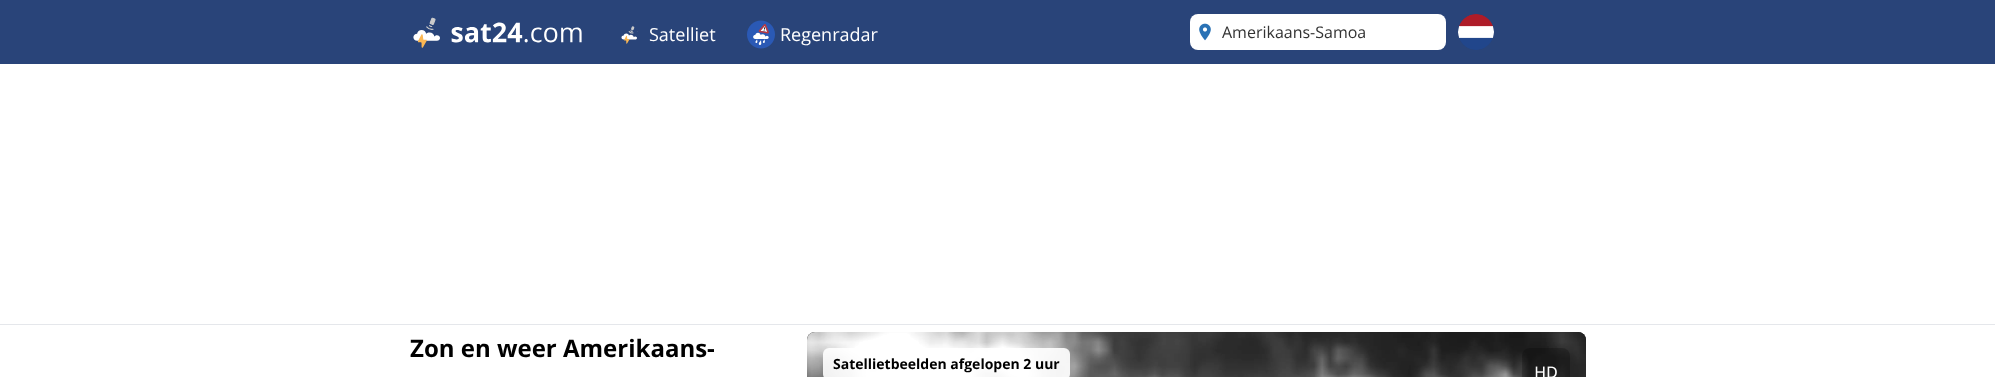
<svg xmlns="http://www.w3.org/2000/svg" width="1995" height="377">
<style>
.a{font:18px Open Sans;fill:#fff}
.b{font:16px Open Sans;fill:#333}
.c{font:bold 24px Open Sans;fill:#000}
.d{font:bold 14px Open Sans;fill:#000}
</style>
<rect width="100%" height="100%" fill="#fff"/>
<path fill="#294479" d="M0 0h1995v64H0z"/>
<image href="1.png" x="413" y="17" width="169" height="31"/>
<image href="2.png" x="621" y="26" width="17" height="18"/>
<image href="3.png" x="747" y="20" width="28" height="29"/>
<rect fill="#fff" x="1190" y="14" width="256" height="36" rx="8"/>
<image href="4.png" x="1199" y="23" width="12" height="18"/>
<image href="5.png" x="1458" y="14" width="36" height="36"/>
<path fill="#e5e7eb" d="M0 324h1995v1H0z"/>
<image href="6.png" x="807" y="332" width="779" height="8"/>
<image href="7.png" x="807" y="332" width="779" height="45"/>
<rect fill="#ffffffe6" x="823" y="348" width="247" height="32" rx="6"/>
<rect fill="#00000036" x="1522" y="348" width="48" height="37" rx="8"/>
<image href="8.png" x="1535" y="366" width="22" height="11"/>
<text class="a" x="649" y="41">Satelliet</text>
<text class="a" x="780" y="41">Regenradar</text>
<text class="b" x="1222" y="38">Amerikaans-Samoa</text>
<text class="c" x="410" y="357">Zon en weer Amerikaans-</text>
<text class="d" x="833" y="369">Satellietbeelden afgelopen 2 uur</text>
</svg>
